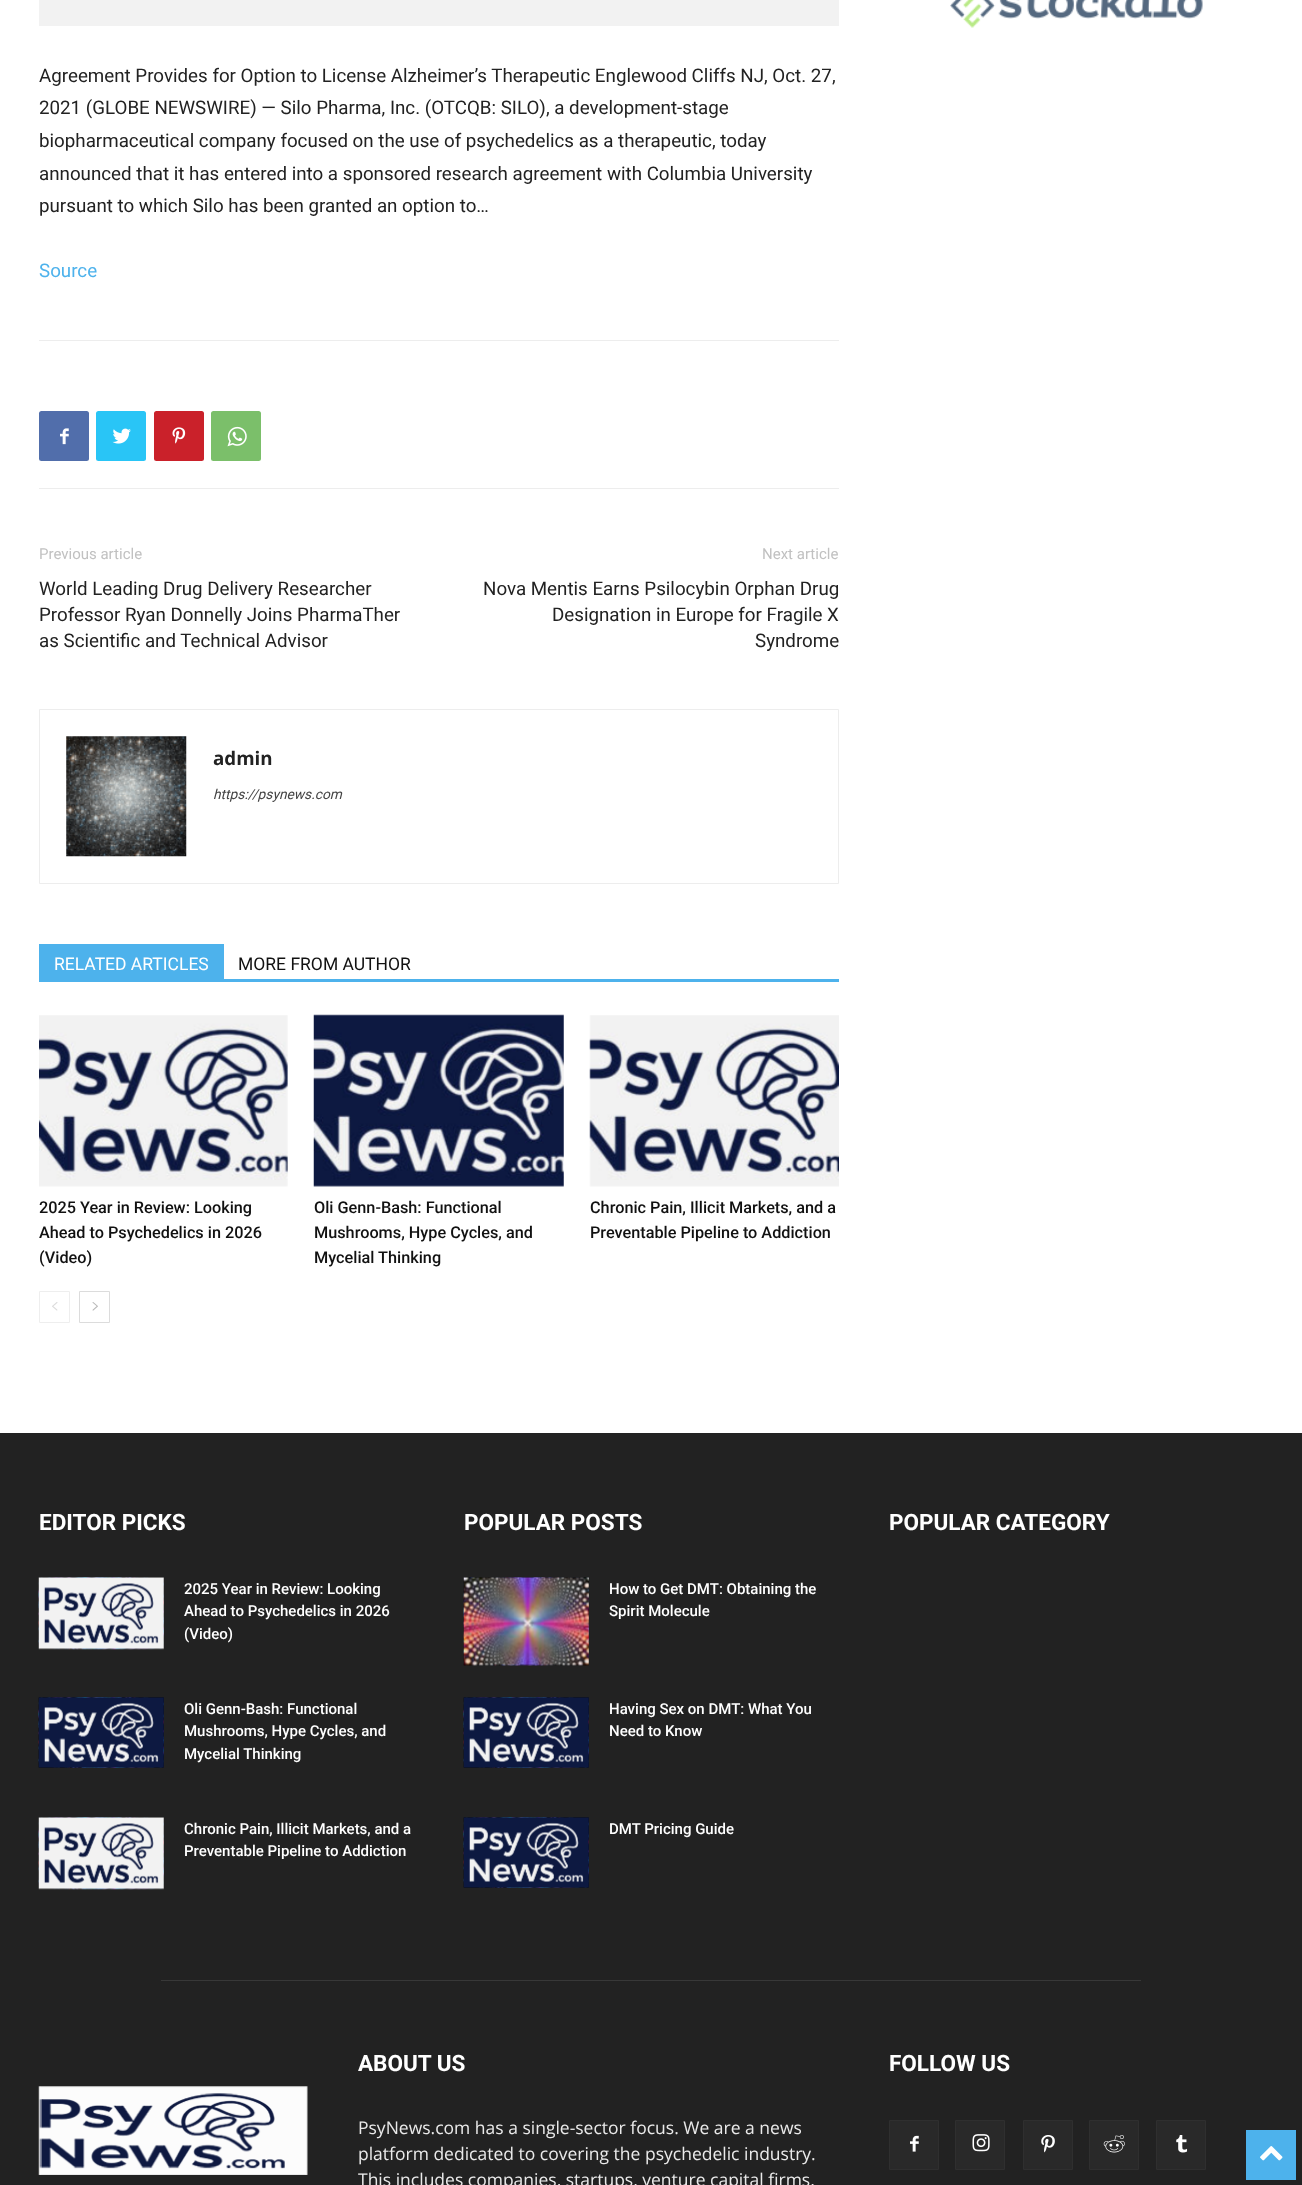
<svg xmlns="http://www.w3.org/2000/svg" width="1302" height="2185">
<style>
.a{font:18.75px Roboto;fill:#222}
.b{font:18.75px Roboto;fill:#4db2ec}
.c{font:15px Roboto;fill:#c1c1c1}
.d{font:bold 18.75px Open Sans;fill:#222}
.e{font:italic 13.75px Roboto;fill:#444}
.f{font:17.5px Roboto;fill:#fff}
.g{font:17.5px Roboto;fill:#111}
.h{font:500 16.25px Roboto;fill:#111}
.i{font:bold 22.5px Roboto;fill:#fff}
.j{font:500 15px Roboto;fill:#fff}
.k{font:17.5px Open Sans;fill:#eaeaea}
</style>
<rect width="100%" height="100%" fill="#fff"/>
<image href="1.png" x="950" y="0" width="253" height="28"/>
<path fill="#f2f2f2" d="M39 0h800v26H39z"/>
<path fill="#ededed" d="M39 340h800v1H39z"/>
<path fill="#ededed" d="M39 488h800v1H39z"/>
<rect fill="#516eab" x="39" y="411" width="50" height="50" rx="2.5"/>
<image href="2.png" x="60" y="428" width="9" height="17"/>
<rect fill="#29c5f6" x="96" y="411" width="50" height="50" rx="2.5"/>
<image href="3.png" x="112" y="428" width="19" height="16"/>
<rect fill="#ca212a" x="154" y="411" width="50" height="50" rx="2.5"/>
<image href="4.png" x="172" y="427" width="14" height="17"/>
<rect fill="#7bbf6a" x="211" y="411" width="50" height="50" rx="2.5"/>
<image href="5.png" x="227" y="426" width="20" height="21"/>
<path fill="none" stroke="#ededed" d="M39.5 709.5h799v174H39.5z"/>
<image href="6.png" x="66" y="736" width="121" height="121"/>
<path fill="#4db2ec" d="M39 979h800v3H39z"/>
<path fill="#4db2ec" d="M39 944h185v35H39z"/>
<image href="7.png" x="39" y="1015" width="249" height="172"/>
<image href="8.png" x="313" y="1014" width="251" height="173"/>
<image href="9.png" x="589" y="1015" width="250" height="172"/>
<path fill="none" stroke="#eee" d="M39.5 1291.5h30v31H39.5z"/>
<image href="10.png" x="52" y="1302" width="6" height="9"/>
<path fill="none" stroke="#dcdcdc" d="M79.5 1291.5h30v31H79.5z"/>
<image href="11.png" x="92" y="1302" width="6" height="9"/>
<path fill="#222" d="M0 1433h1302v752H0z"/>
<image href="12.png" x="38" y="1577" width="126" height="73"/>
<image href="13.png" x="38" y="1577" width="126" height="73"/>
<image href="14.png" x="38" y="1697" width="126" height="71"/>
<image href="15.png" x="38" y="1697" width="126" height="71"/>
<image href="16.png" x="38" y="1817" width="126" height="73"/>
<image href="17.png" x="38" y="1817" width="126" height="73"/>
<image href="18.png" x="463" y="1577" width="126" height="89"/>
<image href="19.png" x="463" y="1577" width="126" height="89"/>
<image href="14.png" x="463" y="1697" width="126" height="71"/>
<image href="15.png" x="463" y="1697" width="126" height="71"/>
<image href="14.png" x="463" y="1817" width="126" height="71"/>
<image href="15.png" x="463" y="1817" width="126" height="71"/>
<path fill="#383838" d="M161 1980h980v1H161z"/>
<path fill="#292929" d="M890 2121h48v48H890z"/>
<image href="20.png" x="910" y="2135" width="9" height="17"/>
<path fill="none" stroke="#2f2f2f" d="M889.5 2120.5h49v49H889.5z"/>
<path fill="#292929" d="M956 2121h48v48H956z"/>
<image href="21.png" x="972" y="2134" width="18" height="18"/>
<path fill="none" stroke="#2f2f2f" d="M955.5 2120.5h49v49H955.5z"/>
<path fill="#292929" d="M1024 2121h48v48H1024z"/>
<image href="22.png" x="1041" y="2135" width="14" height="18"/>
<path fill="none" stroke="#2f2f2f" d="M1023.5 2120.5h49v49H1023.5z"/>
<path fill="#292929" d="M1090 2121h48v48H1090z"/>
<image href="23.png" x="1103" y="2135" width="22" height="18"/>
<path fill="none" stroke="#2f2f2f" d="M1089.5 2120.5h49v49H1089.5z"/>
<path fill="#292929" d="M1157 2121h48v48H1157z"/>
<image href="24.png" x="1176" y="2135" width="12" height="18"/>
<path fill="none" stroke="#2f2f2f" d="M1156.5 2120.5h49v49H1156.5z"/>
<image href="25.png" x="38" y="2086" width="270" height="89"/>
<path fill="#4db2ec" d="M1246 2130h50v50H1246z"/>
<image href="26.png" x="1260" y="2146" width="23" height="15"/>
<text class="a" x="39" y="82">Agreement Provides for Option to License Alzheimer’s Therapeutic Englewood Cliffs NJ, Oct. 27,</text>
<text class="a" x="39" y="114">2021 (GLOBE NEWSWIRE) — Silo Pharma, Inc. (OTCQB: SILO), a development-stage</text>
<text class="a" x="39" y="147">biopharmaceutical company focused on the use of psychedelics as a therapeutic, today</text>
<text class="a" x="39" y="180">announced that it has entered into a sponsored research agreement with Columbia University</text>
<text class="a" x="39" y="212">pursuant to which Silo has been granted an option to…</text>
<text class="b" x="39" y="277">Source</text>
<text class="c" x="39" y="559">Previous article</text>
<text class="a" x="39" y="595">World Leading Drug Delivery Researcher</text>
<text class="a" x="39" y="621">Professor Ryan Donnelly Joins PharmaTher</text>
<text class="a" x="39" y="647">as Scientific and Technical Advisor</text>
<text class="c" x="762" y="559">Next article</text>
<text class="a" x="483" y="595">Nova Mentis Earns Psilocybin Orphan Drug</text>
<text class="a" x="552" y="621">Designation in Europe for Fragile X</text>
<text class="a" x="755" y="647">Syndrome</text>
<text class="d" x="213" y="765">admin</text>
<text class="e" x="213" y="799">https://psynews.com</text>
<text class="f" x="54" y="970">RELATED ARTICLES</text>
<text class="g" x="238" y="970">MORE FROM AUTHOR</text>
<text class="h" x="39" y="1213">2025 Year in Review: Looking</text>
<text class="h" x="39" y="1238">Ahead to Psychedelics in 2026</text>
<text class="h" x="39" y="1263">(Video)</text>
<text class="h" x="314" y="1213">Oli Genn-Bash: Functional</text>
<text class="h" x="314" y="1238">Mushrooms, Hype Cycles, and</text>
<text class="h" x="314" y="1263">Mycelial Thinking</text>
<text class="h" x="590" y="1213">Chronic Pain, Illicit Markets, and a</text>
<text class="h" x="590" y="1238">Preventable Pipeline to Addiction</text>
<text class="i" x="39" y="1530">EDITOR PICKS</text>
<text class="j" x="184" y="1594">2025 Year in Review: Looking</text>
<text class="j" x="184" y="1616">Ahead to Psychedelics in 2026</text>
<text class="j" x="184" y="1639">(Video)</text>
<text class="j" x="184" y="1714">Oli Genn-Bash: Functional</text>
<text class="j" x="184" y="1736">Mushrooms, Hype Cycles, and</text>
<text class="j" x="184" y="1759">Mycelial Thinking</text>
<text class="j" x="184" y="1834">Chronic Pain, Illicit Markets, and a</text>
<text class="j" x="184" y="1856">Preventable Pipeline to Addiction</text>
<text class="i" x="464" y="1530">POPULAR POSTS</text>
<text class="j" x="609" y="1594">How to Get DMT: Obtaining the</text>
<text class="j" x="609" y="1616">Spirit Molecule</text>
<text class="j" x="609" y="1714">Having Sex on DMT: What You</text>
<text class="j" x="609" y="1736">Need to Know</text>
<text class="j" x="609" y="1834">DMT Pricing Guide</text>
<text class="i" x="889" y="1530">POPULAR CATEGORY</text>
<text class="i" x="358" y="2071">ABOUT US</text>
<text class="k" x="358" y="2134">PsyNews.com has a single-sector focus. We are a news</text>
<text class="k" x="358" y="2160">platform dedicated to covering the psychedelic industry.</text>
<text class="k" x="358" y="2186">This includes companies, startups, venture capital firms,</text>
<text class="i" x="889" y="2071">FOLLOW US</text>
</svg>
